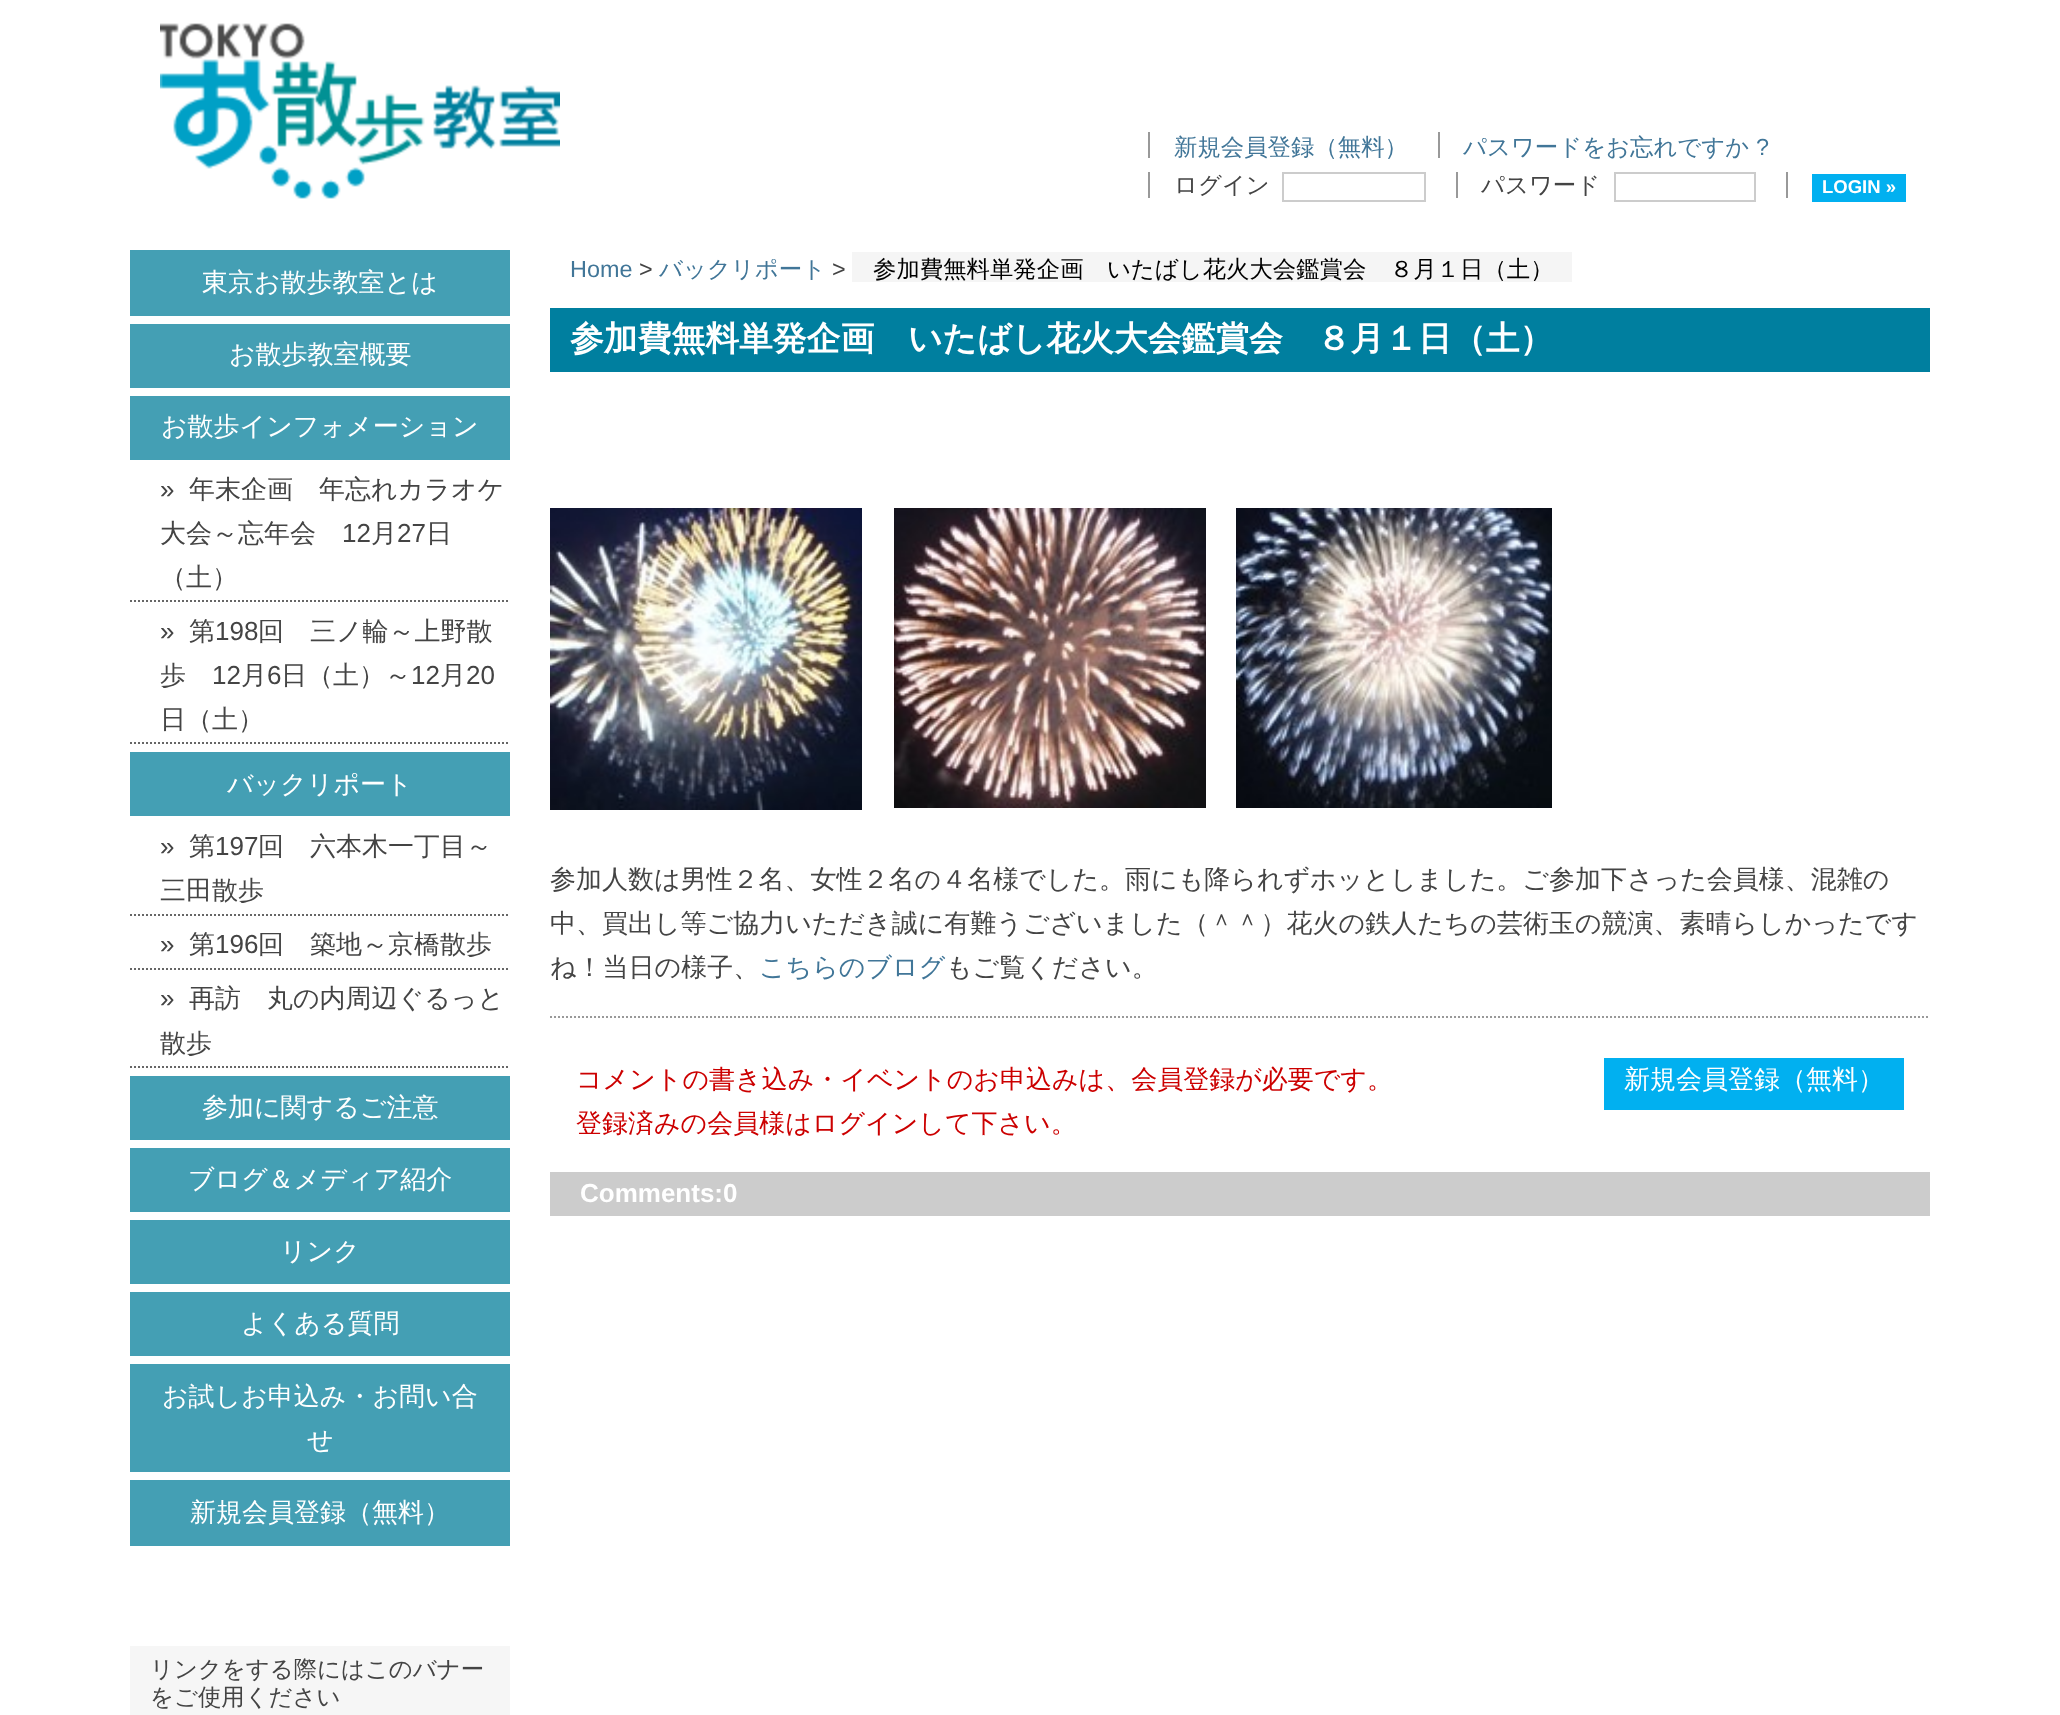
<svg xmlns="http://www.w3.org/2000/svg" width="2060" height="1715">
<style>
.a{font:500 23.4px WenQuanYi Zen Hei;fill:#417698}
.b{font:23.4px Liberation Sans;fill:#417698}
.c{font:500 23.4px WenQuanYi Zen Hei;fill:#444}
.d{font:bold 18.5px Liberation Sans;fill:#fff}
.e{font:500 26px WenQuanYi Zen Hei;fill:#fff}
.f{font:26px Liberation Sans;fill:#444}
.g{font:500 26px WenQuanYi Zen Hei;fill:#444}
.h{font:23.4px Liberation Sans;fill:#444}
.i{font:500 23.4px WenQuanYi Zen Hei;fill:#000}
.j{font:bold 33.8px WenQuanYi Zen Hei;fill:#fff}
.k{font:500 26px WenQuanYi Zen Hei;fill:#417698}
.l{font:500 26px WenQuanYi Zen Hei;fill:#c00}
.m{font:bold 26px Liberation Sans;fill:#fff}
</style>
<rect width="100%" height="100%" fill="#fff"/>
<image href="1.png" x="160" y="23" width="400" height="176"/>
<path fill="#999" d="M1148 132h2v26H1148z"/>
<path fill="#999" d="M1438 132h2v26H1438z"/>
<path fill="#999" d="M1148 172h2v26H1148z"/>
<path fill="none" stroke="#ccc" stroke-width="2" d="M1283 173h142v28H1283z"/>
<path fill="#999" d="M1456 172h2v26H1456z"/>
<path fill="none" stroke="#ccc" stroke-width="2" d="M1615 173h140v28H1615z"/>
<path fill="#999" d="M1786 172h2v26H1786z"/>
<path fill="#01b0f0" d="M1812 174h94v28H1812z"/>
<path fill="#449fb4" d="M130 250h380v66H130z"/>
<path fill="#449fb4" d="M130 324h380v64H130z"/>
<path fill="#449fb4" d="M130 396h380v64H130z"/>
<path fill="none" stroke="#666" stroke-width="2" stroke-dasharray="2 2" d="M130 601h380"/>
<path fill="none" stroke="#666" stroke-width="2" stroke-dasharray="2 2" d="M130 743h380"/>
<path fill="#449fb4" d="M130 752h380v64H130z"/>
<path fill="none" stroke="#666" stroke-width="2" stroke-dasharray="2 2" d="M130 915h380"/>
<path fill="none" stroke="#666" stroke-width="2" stroke-dasharray="2 2" d="M130 969h380"/>
<path fill="none" stroke="#666" stroke-width="2" stroke-dasharray="2 2" d="M130 1067h380"/>
<path fill="#449fb4" d="M130 1076h380v64H130z"/>
<path fill="#449fb4" d="M130 1148h380v64H130z"/>
<path fill="#449fb4" d="M130 1220h380v64H130z"/>
<path fill="#449fb4" d="M130 1292h380v64H130z"/>
<path fill="#449fb4" d="M130 1364h380v108H130z"/>
<path fill="#449fb4" d="M130 1480h380v66H130z"/>
<path fill="#f6f6f6" d="M130 1646h380v69H130z"/>
<path fill="#f5f5f5" d="M852 252h720v30H852z"/>
<path fill="#007f9f" d="M550 308h1380v64H550z"/>
<image href="2.png" x="550" y="508" width="312" height="302"/>
<image href="3.png" x="894" y="508" width="312" height="300"/>
<image href="4.png" x="1236" y="508" width="316" height="300"/>
<path fill="none" stroke="#999" stroke-width="2" stroke-dasharray="2 2" d="M550 1017h1380"/>
<path fill="#01b0f0" d="M1604 1058h300v52H1604z"/>
<path fill="#ccc" d="M550 1172h1380v44H550z"/>
<text class="a" x="1174" y="155">新規会員登録（無料）</text>
<text class="a" x="1463" y="155">パスワードをお忘れですか</text>
<text class="b" x="1756" y="155">?</text>
<text class="c" x="1174" y="193">ログイン</text>
<text class="c" x="1481" y="193">パスワード</text>
<text class="d" x="1822" y="193">LOGIN »</text>
<text class="e" x="202" y="291">東京お散歩教室とは</text>
<text class="e" x="229" y="363">お散歩教室概要</text>
<text class="e" x="161" y="435">お散歩インフォメーション</text>
<text class="f" x="160" y="498">»</text>
<text class="g" x="189" y="498">年末企画　年忘れカラオケ</text>
<text class="g" x="160" y="542">大会～忘年会</text>
<text class="f" x="342" y="542">12</text>
<text class="g" x="371" y="542">月</text>
<text class="f" x="397" y="542">27</text>
<text class="g" x="426" y="542">日</text>
<text class="g" x="160" y="586">（土）</text>
<text class="f" x="160" y="640">»</text>
<text class="g" x="189" y="640">第</text>
<text class="f" x="215" y="640">198</text>
<text class="g" x="258" y="640">回　三ノ輪～上野散</text>
<text class="g" x="160" y="684">歩</text>
<text class="f" x="212" y="684">12</text>
<text class="g" x="241" y="684">月</text>
<text class="f" x="267" y="684">6</text>
<text class="g" x="281" y="684">日（土）～</text>
<text class="f" x="411" y="684">12</text>
<text class="g" x="440" y="684">月</text>
<text class="f" x="466" y="684">20</text>
<text class="g" x="160" y="728">日（土）</text>
<text class="e" x="227" y="793">バックリポート</text>
<text class="f" x="160" y="855">»</text>
<text class="g" x="189" y="855">第</text>
<text class="f" x="215" y="855">197</text>
<text class="g" x="258" y="855">回　六本木一丁目～</text>
<text class="g" x="160" y="899">三田散歩</text>
<text class="f" x="160" y="953">»</text>
<text class="g" x="189" y="953">第</text>
<text class="f" x="215" y="953">196</text>
<text class="g" x="258" y="953">回　築地～京橋散歩</text>
<text class="f" x="160" y="1007">»</text>
<text class="g" x="189" y="1007">再訪　丸の内周辺ぐるっと</text>
<text class="g" x="160" y="1052">散歩</text>
<text class="e" x="202" y="1116">参加に関するご注意</text>
<text class="e" x="188" y="1188">ブログ＆メディア紹介</text>
<text class="e" x="280" y="1260">リンク</text>
<text class="e" x="241" y="1332">よくある質問</text>
<text class="e" x="162" y="1405">お試しお申込み・お問い合</text>
<text class="e" x="307" y="1449">せ</text>
<text class="e" x="190" y="1521">新規会員登録（無料）</text>
<text class="c" x="150" y="1677">リンクをする際にはこのバナー</text>
<text class="c" x="150" y="1705">をご使用ください</text>
<text class="b" x="570" y="277">Home</text>
<text class="h" x="639" y="277">&gt;</text>
<text class="a" x="659" y="277">バックリポート</text>
<text class="h" x="832" y="277">&gt;</text>
<text class="i" x="873" y="277">参加費無料単発企画　いたばし花火大会鑑賞会　８月１日（土）</text>
<text class="j" x="570" y="350">参加費無料単発企画　いたばし花火大会鑑賞会　８月１日（土）</text>
<text class="g" x="550" y="888">参加人数は男性２名、女性２名の４名様でした。雨にも降られずホッとしました。ご参加下さった会員様、混雑の</text>
<text class="g" x="550" y="932">中、買出し等ご協力いただき誠に有難うございました（＾＾）花火の鉄人たちの芸術玉の競演、素晴らしかったです</text>
<text class="g" x="550" y="976">ね！当日の様子、</text>
<text class="k" x="759" y="976">こちらのブログ</text>
<text class="g" x="946" y="976">もご覧ください。</text>
<text class="l" x="576" y="1088">コメントの書き込み・イベントのお申込みは、会員登録が必要です。</text>
<text class="l" x="576" y="1132">登録済みの会員様はログインして下さい。</text>
<text class="e" x="1624" y="1088">新規会員登録（無料）</text>
<text class="m" x="580" y="1202">Comments:0</text>
</svg>
